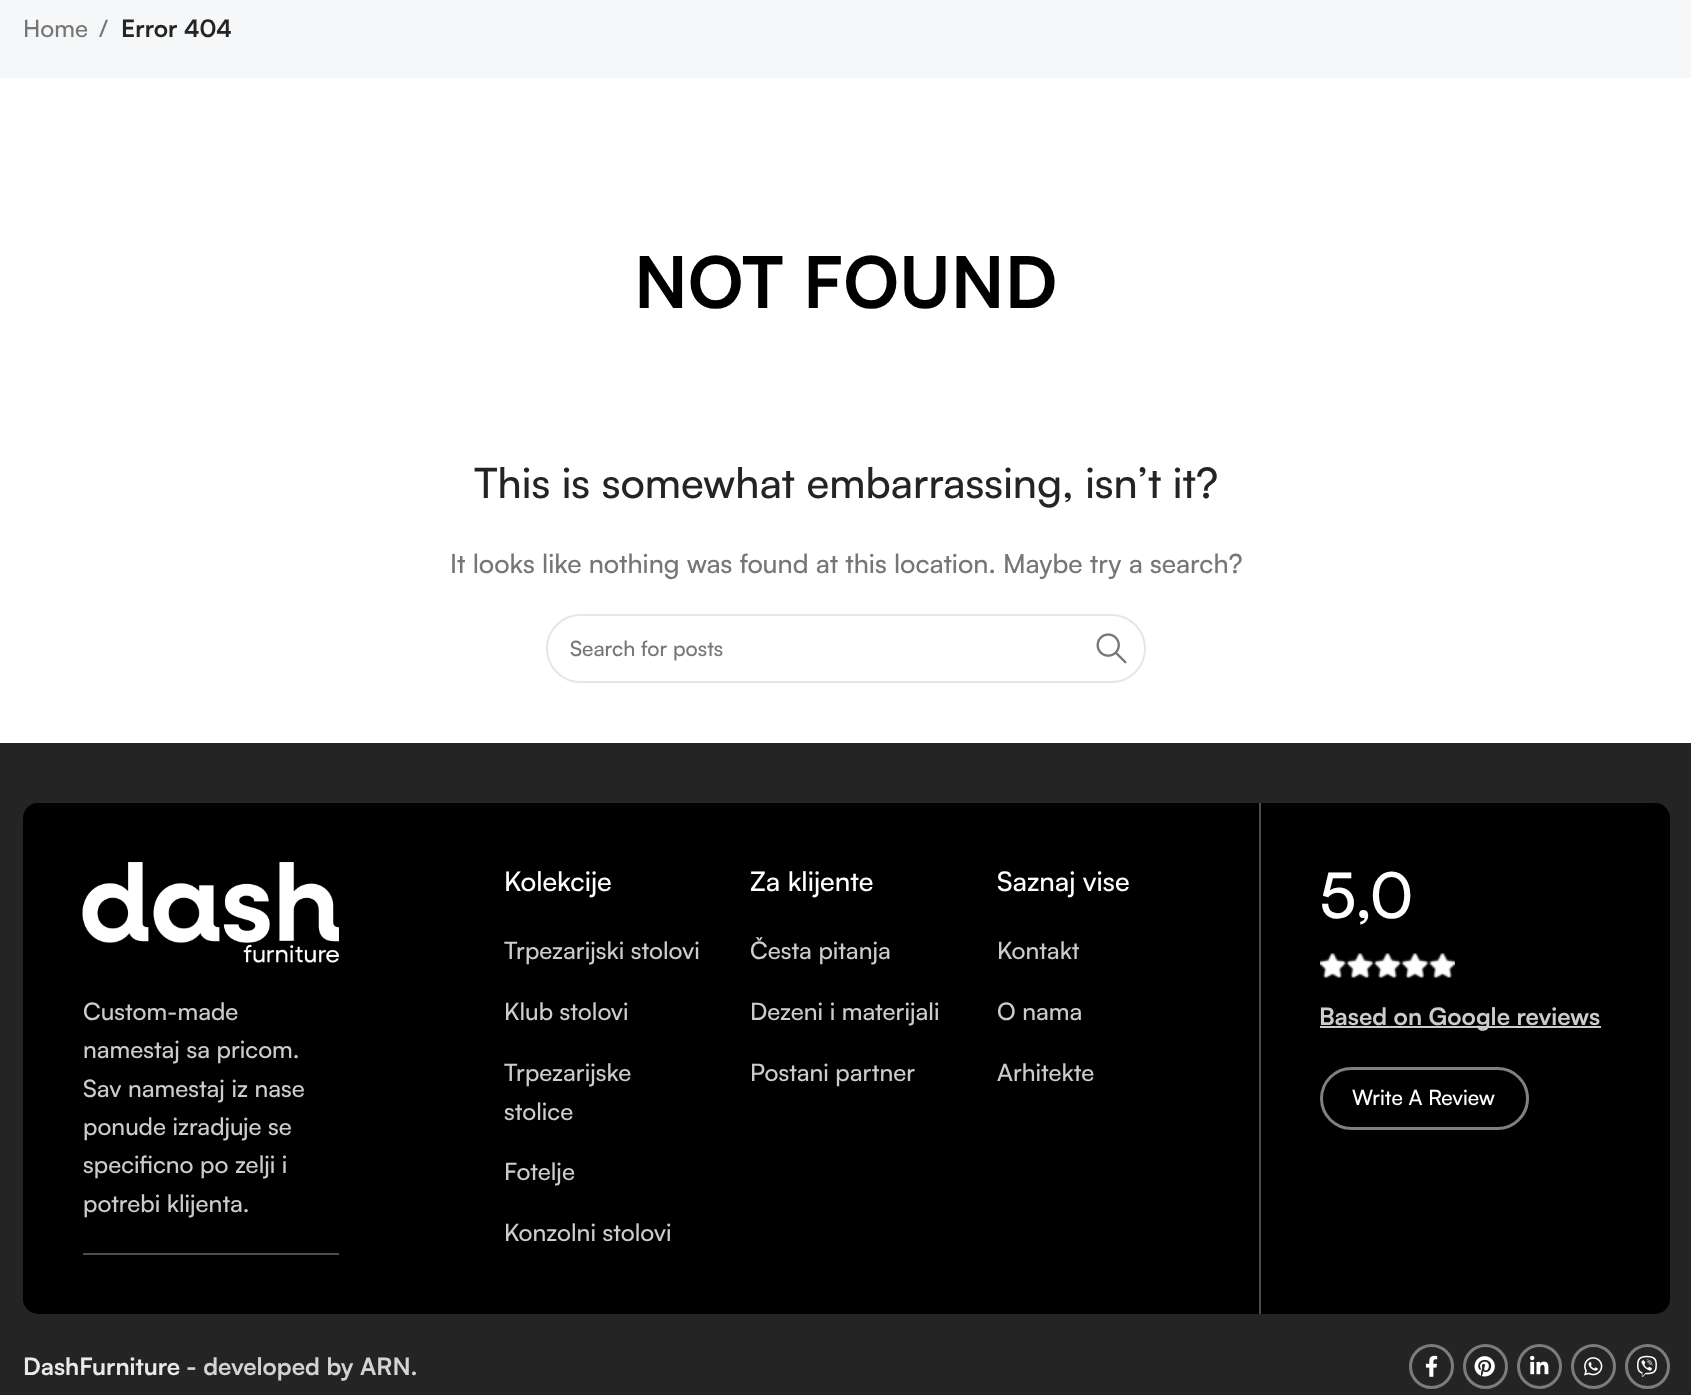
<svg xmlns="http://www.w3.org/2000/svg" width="1691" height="1395">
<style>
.a{font:500 24px Satoshi;fill:#767676}
.b{font:bold 24px Satoshi;fill:#242424}
.c{font:bold 71px Satoshi;fill:#000}
.d{font:500 42px Satoshi;fill:#242424}
.e{font:500 26.4px Satoshi;fill:#767676}
.f{font:500 21px Satoshi;fill:#767676}
.g{font:500 24px Satoshi;fill:#ccc}
.h{font:500 27px Satoshi;fill:#fff}
.i{font:500 63px Satoshi;fill:#fff}
.j{font:bold 24px Satoshi;fill:#ccc}
.k{font:500 21px Satoshi;fill:#fff}
.l{font:bold 24px Satoshi;fill:#e9e9e9}
.m{font:bold 24px Satoshi;fill:#d3d3d3}
</style>
<rect width="100%" height="100%" fill="#fff"/>
<path fill="#f5f7f8" d="M0 0h1691v78H0z"/>
<rect fill="none" stroke="#e6e6e6" stroke-width="2" x="547" y="615" width="598" height="67" rx="33.5"/>
<image href="1.png" x="1096" y="633" width="31" height="31"/>
<path fill="#242424" d="M0 743h1691v652H0z"/>
<rect fill="#000" x="23" y="803" width="1647" height="511" rx="15"/>
<image href="2.png" x="82" y="862" width="257" height="101"/>
<path fill="#4d4d4d" d="M83 1253h256v2H83z"/>
<path fill="#4d4d4d" d="M1259 803h2v511H1259z"/>
<image href="3.png" x="1320" y="953" width="135" height="25"/>
<path fill="#ccc" d="M1320 1026h281v2H1320z"/>
<rect fill="none" stroke="#808080" stroke-width="3" x="1321.5" y="1068.5" width="206" height="60" rx="30"/>
<circle fill="none" stroke="#7c7c7c" stroke-width="3" cx="1431.5" cy="1366.5" r="21"/>
<image href="4.png" x="1425" y="1355" width="13" height="22"/>
<circle fill="none" stroke="#7c7c7c" stroke-width="3" cx="1485.5" cy="1366.5" r="21"/>
<image href="5.png" x="1474" y="1356" width="21" height="21"/>
<circle fill="none" stroke="#7c7c7c" stroke-width="3" cx="1539.5" cy="1366.5" r="21"/>
<image href="6.png" x="1530" y="1355" width="19" height="20"/>
<circle fill="none" stroke="#7c7c7c" stroke-width="3" cx="1593.5" cy="1366.5" r="21"/>
<image href="7.png" x="1584" y="1357" width="19" height="19"/>
<circle fill="none" stroke="#7c7c7c" stroke-width="3" cx="1647.5" cy="1366.5" r="21"/>
<image href="8.png" x="1637" y="1355" width="20" height="22"/>
<text class="a" x="23" y="37">Home</text>
<text class="a" x="99" y="37">/</text>
<text class="b" x="121" y="37">Error 404</text>
<text class="c" x="634" y="308">NOT FOUND</text>
<text class="d" x="474" y="498">This is somewhat embarrassing, isn’t it?</text>
<text class="e" x="450" y="573">It looks like nothing was found at this location. Maybe try a search?</text>
<text class="f" x="570" y="656">Search for posts</text>
<text class="g" x="83" y="1020">Custom-made</text>
<text class="g" x="83" y="1058">namestaj sa pricom.</text>
<text class="g" x="83" y="1097">Sav namestaj iz nase</text>
<text class="g" x="83" y="1135">ponude izradjuje se</text>
<text class="g" x="83" y="1173">specificno po zelji i</text>
<text class="g" x="83" y="1212">potrebi klijenta.</text>
<text class="h" x="504" y="891">Kolekcije</text>
<text class="g" x="504" y="959">Trpezarijski stolovi</text>
<text class="g" x="504" y="1020">Klub stolovi</text>
<text class="g" x="504" y="1081">Trpezarijske</text>
<text class="g" x="504" y="1120">stolice</text>
<text class="g" x="504" y="1180">Fotelje</text>
<text class="g" x="504" y="1241">Konzolni stolovi</text>
<text class="h" x="750" y="891">Za klijente</text>
<text class="g" x="750" y="959">Česta pitanja</text>
<text class="g" x="750" y="1020">Dezeni i materijali</text>
<text class="g" x="750" y="1081">Postani partner</text>
<text class="h" x="997" y="891">Saznaj vise</text>
<text class="g" x="997" y="959">Kontakt</text>
<text class="g" x="997" y="1020">O nama</text>
<text class="g" x="997" y="1081">Arhitekte</text>
<text class="i" x="1319" y="918">5,0</text>
<text class="j" x="1319" y="1025">Based on Google reviews</text>
<text class="k" x="1352" y="1105">Write A Review</text>
<text class="l" x="23" y="1375">DashFurniture</text>
<text class="m" x="186" y="1375">- developed by ARN.</text>
</svg>
